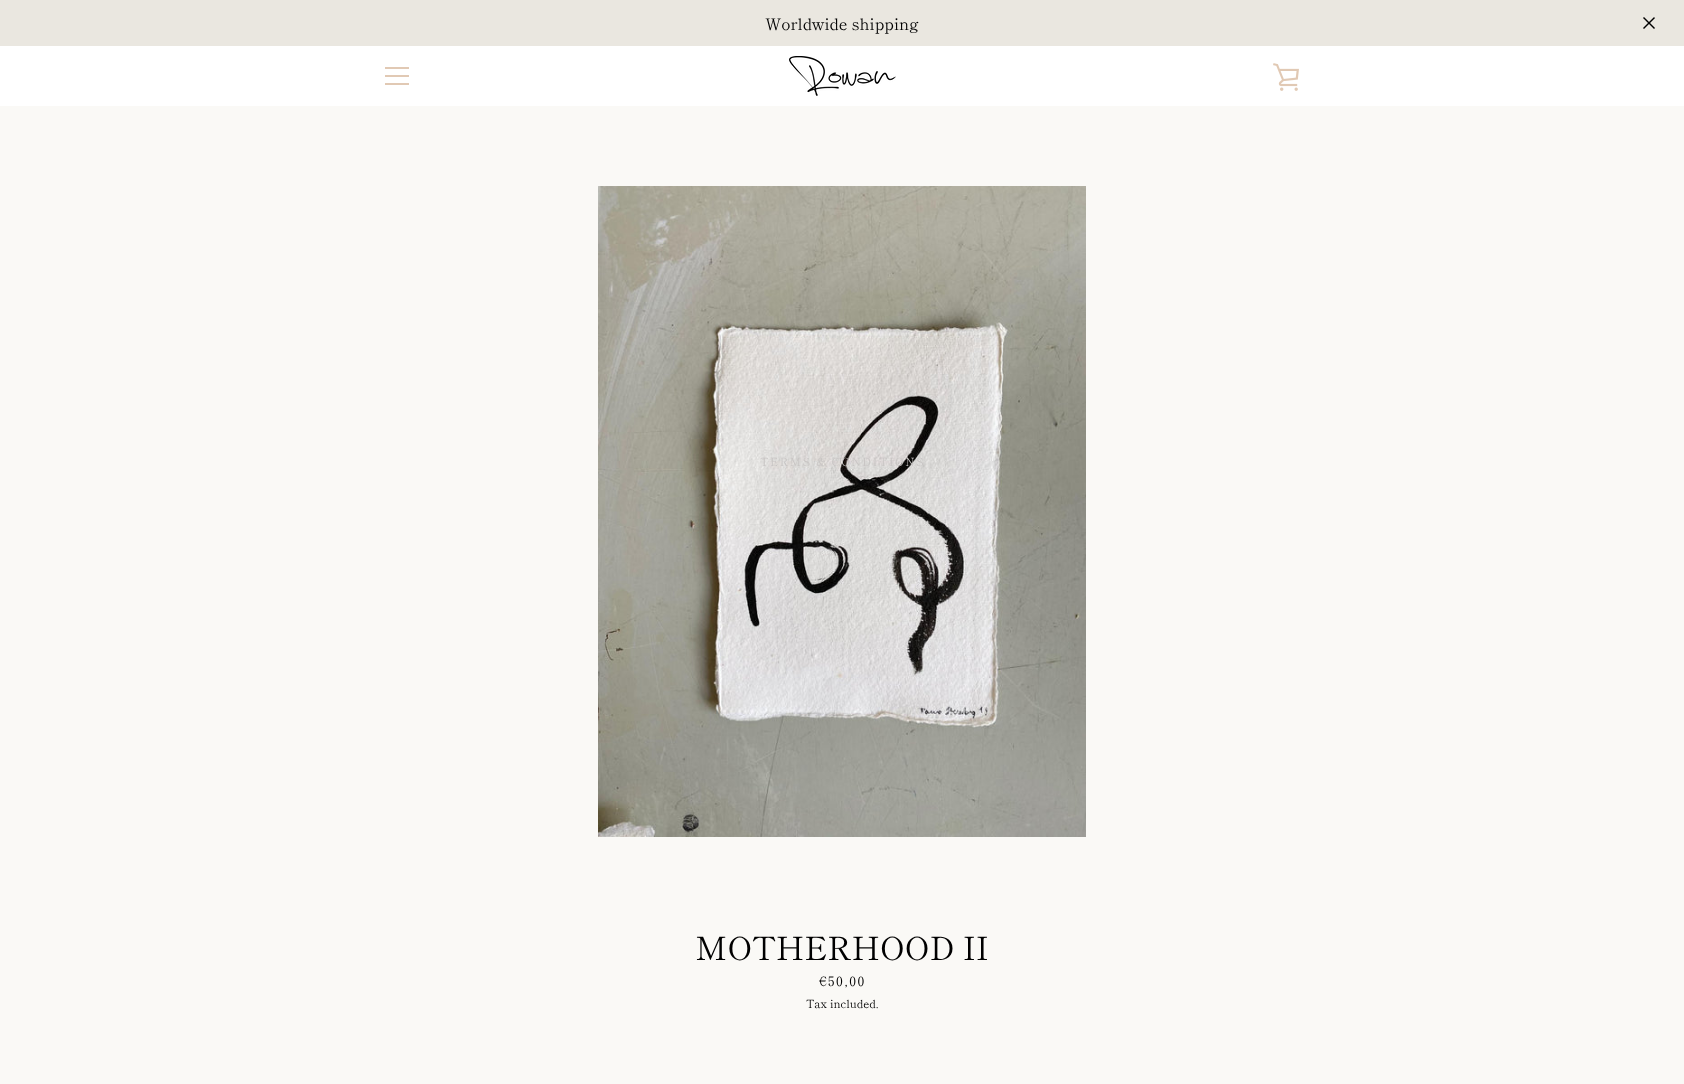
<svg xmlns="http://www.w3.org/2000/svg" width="1684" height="1084">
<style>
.a{font:16px Shippori Mincho;fill:#000}
.b{font:11.25px Shippori Mincho;letter-spacing:1.6px;fill:#c8c5c4}
.c{font:32px Shippori Mincho;fill:#000}
.d{font:13px Shippori Mincho;letter-spacing:1.5px;fill:#000}
.e{font:11.25px Shippori Mincho;fill:#000}
</style>
<rect width="100%" height="100%" fill="#faf9f6"/>
<path fill="#fff" d="M0 46h1684v60H0z"/>
<path fill="#eae7e0" d="M0 0h1684v46H0z"/>
<image href="1.png" x="1643" y="17" width="12" height="12"/>
<image href="2.png" x="789" y="56" width="107" height="40"/>
<image href="3.png" x="1273" y="63" width="26" height="28"/>
<path fill="#e1c9b4" d="M385 67h24v2H385z"/>
<path fill="#e1c9b4" d="M385 75h24v2H385z"/>
<path fill="#e1c9b4" d="M385 83h24v2H385z"/>
<image href="4.png" x="598" y="186" width="488" height="651"/>
<text class="a" x="765" y="30">Worldwide shipping</text>
<text class="b" x="760" y="466">TERMS &amp; CONDITIONS</text>
<text class="c" x="695" y="960">MOTHERHOOD II</text>
<text class="d" x="819" y="986">€50,00</text>
<text class="e" x="806" y="1008">Tax included.</text>
</svg>
